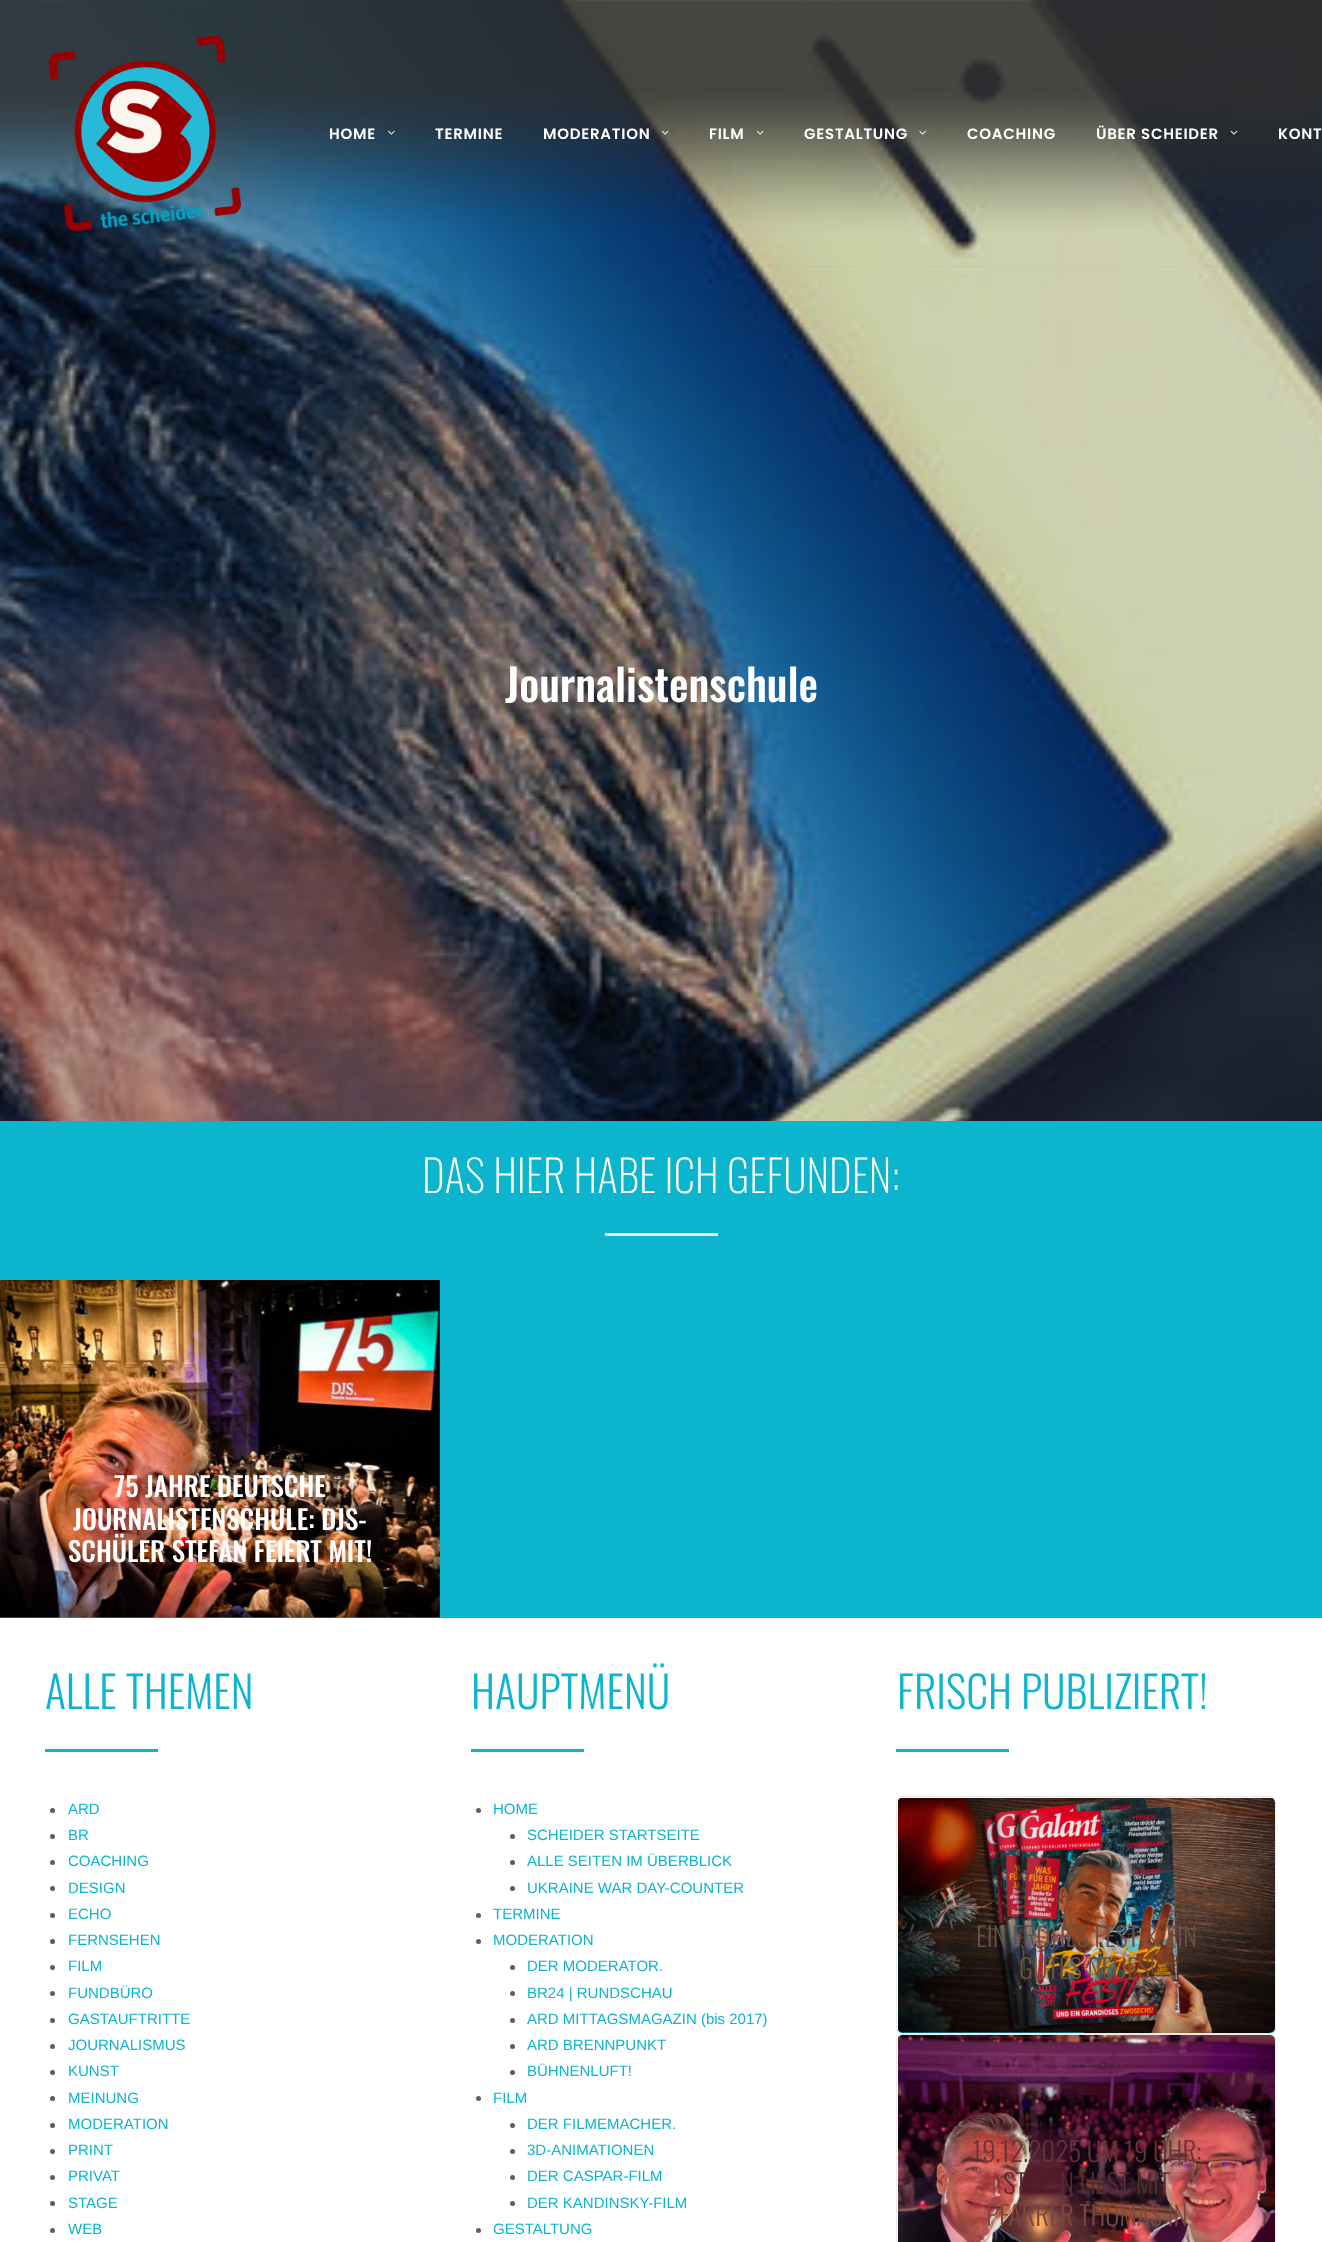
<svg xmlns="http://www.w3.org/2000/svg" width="1322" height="2242">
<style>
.a{font:600 15px Poppins;letter-spacing:0.75px;fill:#fff}
.b{font:500 43.75px Oswald;fill:#fff}
.c{font:200 43.75px Oswald;fill:#fff}
.d{font:500 27px Oswald;fill:#fff}
.e{font:300 43.75px Oswald;fill:#0cb4ce}
.f{font:15px Liberation Sans;fill:#0cb4ce}
.g{font:300 27px Oswald;fill:#675248}
.h{font:300 27px Oswald;fill:#71533d}
.i{font:300 27px Oswald;fill:#6c3138}
.j{font:300 27px Oswald;fill:#562c34}
.k{font:300 27px Oswald;fill:#7c473e}
</style>
<defs>
<linearGradient id="g1" gradientUnits="userSpaceOnUse" x1="1086" y1="2033" x2="1086" y2="1798"><stop offset="0" stop-color="#0cb4ce"/><stop offset="0.5" stop-color="#fff"/></linearGradient>
<linearGradient id="g2" gradientUnits="userSpaceOnUse" x1="1086" y1="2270" x2="1086" y2="2035"><stop offset="0" stop-color="#0cb4ce"/><stop offset="0.5" stop-color="#fff"/></linearGradient>
</defs>
<rect width="100%" height="100%" fill="#fff"/>
<image href="8.png" x="0" y="0" width="1322" height="1121"/>
<image href="1.png" x="0" y="0" width="1322" height="267"/>
<image href="2.png" x="48" y="35" width="193" height="197"/>
<image href="3.png" x="388" y="130" width="7" height="5"/>
<image href="4.png" x="661" y="130" width="8" height="5"/>
<image href="5.png" x="756" y="130" width="8" height="5"/>
<image href="6.png" x="919" y="130" width="7" height="5"/>
<image href="7.png" x="1230" y="130" width="8" height="5"/>
<path fill="#0cb4ce" d="M0 1121h1322v497H0z"/>
<path fill="#eaeaea" d="M605 1233h113v3H605z"/>
<image href="9.png" x="0" y="1280" width="440" height="338"/>
<path fill="#0cb4ce" d="M45 1749h113v3H45z"/>
<circle fill="#5e5e5e" cx="52.5" cy="1810.5" r="2.5"/>
<circle fill="#5e5e5e" cx="52.5" cy="1836.5" r="2.5"/>
<circle fill="#5e5e5e" cx="52.5" cy="1862.5" r="2.5"/>
<circle fill="#5e5e5e" cx="52.5" cy="1888.5" r="2.5"/>
<circle fill="#5e5e5e" cx="52.5" cy="1915.5" r="2.5"/>
<circle fill="#5e5e5e" cx="52.5" cy="1941.5" r="2.5"/>
<circle fill="#5e5e5e" cx="52.5" cy="1967.5" r="2.5"/>
<circle fill="#5e5e5e" cx="52.5" cy="1993.5" r="2.5"/>
<circle fill="#5e5e5e" cx="52.5" cy="2020.5" r="2.5"/>
<circle fill="#5e5e5e" cx="52.5" cy="2046.5" r="2.5"/>
<circle fill="#5e5e5e" cx="52.5" cy="2072.5" r="2.5"/>
<circle fill="#5e5e5e" cx="52.5" cy="2098.5" r="2.5"/>
<circle fill="#5e5e5e" cx="52.5" cy="2125.5" r="2.5"/>
<circle fill="#5e5e5e" cx="52.5" cy="2151.5" r="2.5"/>
<circle fill="#5e5e5e" cx="52.5" cy="2177.5" r="2.5"/>
<circle fill="#5e5e5e" cx="52.5" cy="2203.5" r="2.5"/>
<circle fill="#5e5e5e" cx="52.5" cy="2230.5" r="2.5"/>
<path fill="#0cb4ce" d="M471 1749h113v3H471z"/>
<circle fill="#5e5e5e" cx="478.5" cy="1810.5" r="2.5"/>
<circle fill="#5e5e5e" cx="512.5" cy="1836.5" r="2.5"/>
<circle fill="#5e5e5e" cx="512.5" cy="1862.5" r="2.5"/>
<circle fill="#5e5e5e" cx="512.5" cy="1888.5" r="2.5"/>
<circle fill="#5e5e5e" cx="478.5" cy="1915.5" r="2.5"/>
<circle fill="#5e5e5e" cx="478.5" cy="1941.5" r="2.5"/>
<circle fill="#5e5e5e" cx="512.5" cy="1967.5" r="2.5"/>
<circle fill="#5e5e5e" cx="512.5" cy="1993.5" r="2.5"/>
<circle fill="#5e5e5e" cx="512.5" cy="2020.5" r="2.5"/>
<circle fill="#5e5e5e" cx="512.5" cy="2046.5" r="2.5"/>
<circle fill="#5e5e5e" cx="512.5" cy="2072.5" r="2.5"/>
<circle fill="#5e5e5e" cx="478.5" cy="2098.5" r="2.5"/>
<circle fill="#5e5e5e" cx="512.5" cy="2125.5" r="2.5"/>
<circle fill="#5e5e5e" cx="512.5" cy="2151.5" r="2.5"/>
<circle fill="#5e5e5e" cx="512.5" cy="2177.5" r="2.5"/>
<circle fill="#5e5e5e" cx="512.5" cy="2203.5" r="2.5"/>
<circle fill="#5e5e5e" cx="478.5" cy="2230.5" r="2.5"/>
<path fill="#0cb4ce" d="M896 1749h113v3H896z"/>
<rect fill="url(#g1)" x="898" y="1798" width="377" height="235" rx="4"/>
<rect fill="none" stroke="#eaeaea" x="896.5" y="1796.5" width="379" height="237" rx="4.5"/>
<image href="10.png" x="898" y="1798" width="377" height="235"/>
<rect fill="url(#g2)" x="898" y="2035" width="377" height="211" rx="4"/>
<rect fill="none" stroke="#eaeaea" x="896.5" y="2034.5" width="379" height="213" rx="4.5"/>
<image href="11.png" x="898" y="2035" width="377" height="207"/>
<text class="a" x="329" y="139">HOME</text>
<text class="a" x="435" y="139">TERMINE</text>
<text class="a" x="543" y="139">MODERATION</text>
<text class="a" x="709" y="139">FILM</text>
<text class="a" x="804" y="139">GESTALTUNG</text>
<text class="a" x="967" y="139">COACHING</text>
<text class="a" x="1096" y="139">ÜBER SCHEIDER</text>
<text class="a" x="1278" y="139">KONT</text>
<text class="b" x="505" y="702">Journalistenschule</text>
<text class="c" x="422" y="1193">DAS HIER HABE ICH GEFUNDEN:</text>
<text class="d" x="114" y="1497">75 JAHRE DEUTSCHE</text>
<text class="d" x="73" y="1530">JOURNALISTENSCHULE: DJS-</text>
<text class="d" x="68" y="1562">SCHÜLER STEFAN FEIERT MIT!</text>
<text class="e" x="45" y="1709">ALLE THEMEN</text>
<text class="f" x="68" y="1814">ARD</text>
<text class="f" x="68" y="1840">BR</text>
<text class="f" x="68" y="1866">COACHING</text>
<text class="f" x="68" y="1893">DESIGN</text>
<text class="f" x="68" y="1919">ECHO</text>
<text class="f" x="68" y="1945">FERNSEHEN</text>
<text class="f" x="68" y="1971">FILM</text>
<text class="f" x="68" y="1998">FUNDBÜRO</text>
<text class="f" x="68" y="2024">GASTAUFTRITTE</text>
<text class="f" x="68" y="2050">JOURNALISMUS</text>
<text class="f" x="68" y="2076">KUNST</text>
<text class="f" x="68" y="2103">MEINUNG</text>
<text class="f" x="68" y="2129">MODERATION</text>
<text class="f" x="68" y="2155">PRINT</text>
<text class="f" x="68" y="2181">PRIVAT</text>
<text class="f" x="68" y="2208">STAGE</text>
<text class="f" x="68" y="2234">WEB</text>
<text class="e" x="471" y="1709">HAUPTMENÜ</text>
<text class="f" x="493" y="1814">HOME</text>
<text class="f" x="527" y="1840">SCHEIDER STARTSEITE</text>
<text class="f" x="527" y="1866">ALLE SEITEN IM ÜBERBLICK</text>
<text class="f" x="527" y="1893">UKRAINE WAR DAY-COUNTER</text>
<text class="f" x="493" y="1919">TERMINE</text>
<text class="f" x="493" y="1945">MODERATION</text>
<text class="f" x="527" y="1971">DER MODERATOR.</text>
<text class="f" x="527" y="1998">BR24 | RUNDSCHAU</text>
<text class="f" x="527" y="2024">ARD MITTAGSMAGAZIN (bis 2017)</text>
<text class="f" x="527" y="2050">ARD BRENNPUNKT</text>
<text class="f" x="527" y="2076">BÜHNENLUFT!</text>
<text class="f" x="493" y="2103">FILM</text>
<text class="f" x="527" y="2129">DER FILMEMACHER.</text>
<text class="f" x="527" y="2155">3D-ANIMATIONEN</text>
<text class="f" x="527" y="2181">DER CASPAR-FILM</text>
<text class="f" x="527" y="2208">DER KANDINSKY-FILM</text>
<text class="f" x="493" y="2234">GESTALTUNG</text>
<text class="e" x="897" y="1709">FRISCH PUBLIZIERT!</text>
<text class="g" x="976" y="1947">EIN FROHES FEST &amp; EIN</text>
<text class="h" x="1019" y="1979">GUTES NEUES!</text>
<text class="i" x="972" y="2162">19.12.2025 UM 19 UHR:</text>
<text class="j" x="1003" y="2194">ST</text>
<text class="j" x="1060" y="2194">N LIEST MIT</text>
<text class="k" x="986" y="2226">PFARRER THOMAS IN</text>
</svg>
